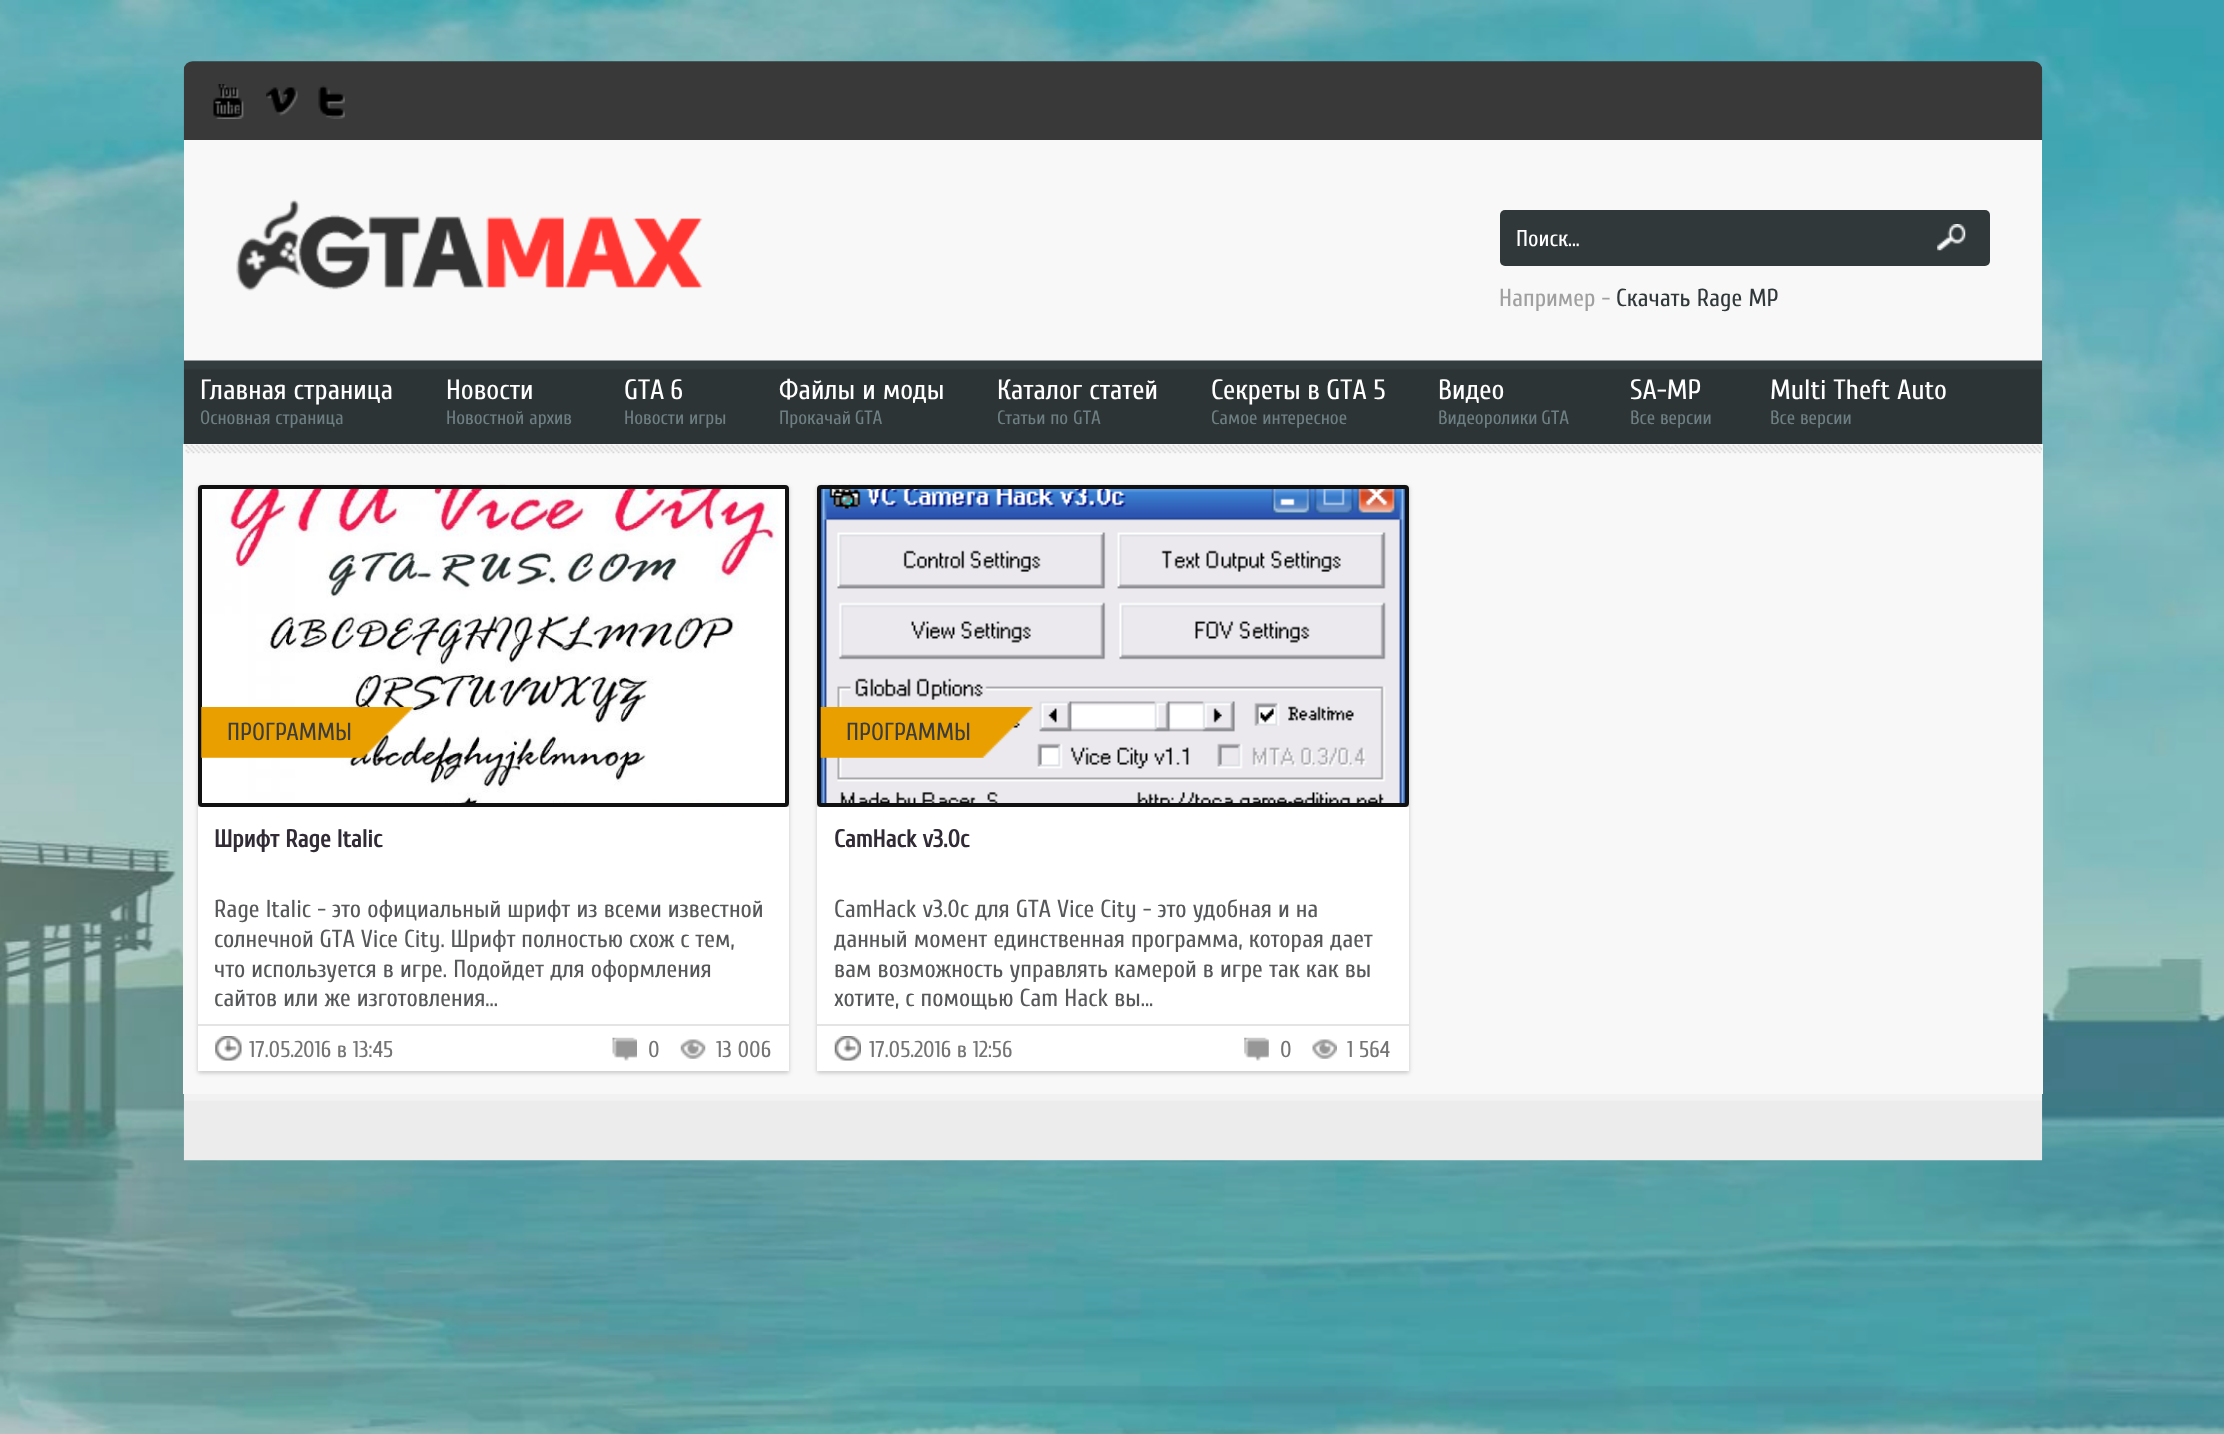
<svg xmlns="http://www.w3.org/2000/svg" width="2224" height="1434">
<style>
.a{font:22.75px Cuprum;fill:#fff}
.b{font:24.5px Cuprum;fill:#a0a0a0}
.c{font:24.5px Cuprum;fill:#30383a}
.d{font:28px Cuprum;fill:#fff}
.e{font:19.25px Cuprum;fill:#6e7f83}
.f{font:24.5px Cuprum;fill:#3c3c3c}
.g{font:bold 24.5px Cuprum;fill:#312b35}
.h{font:24.5px Cuprum;fill:#57585a}
.i{font:22.75px Cuprum;fill:#747474}
</style>
<rect width="100%" height="100%" fill="#fff"/>
<image href="1.png" x="0" y="0" width="2224" height="1434"/>
<image href="2.png" x="183" y="61" width="1860" height="79"/>
<image href="3.png" x="213" y="84" width="31" height="35"/>
<image href="4.png" x="266" y="87" width="32" height="29"/>
<image href="5.png" x="318" y="85" width="27" height="34"/>
<path fill="#f8f8f8" d="M184 140h1858v221H184z"/>
<image href="6.png" x="236" y="199" width="467" height="92"/>
<rect fill="#30383a" x="1500" y="210" width="490" height="56" rx="5"/>
<image href="7.png" x="1937" y="224" width="29" height="27"/>
<image href="8.png" x="183" y="360" width="1860" height="84"/>
<path fill="#f8f8f8" d="M183 444h1860v650H183z"/>
<image href="9.png" x="185" y="444" width="1857" height="10"/>
<path fill="#00000033" filter="blur(2px)" d="M198 487h591v586H198z"/>
<image href="10.png" x="201" y="484" width="585" height="323"/>
<rect fill="none" stroke="#111" stroke-width="4" x="200" y="487" width="587" height="318" rx="2"/>
<image href="11.png" x="201" y="707" width="212" height="51"/>
<path fill="#fff" d="M198 807h591v264H198z"/>
<path fill="#e4e4e4" d="M198 1024h591v2H198z"/>
<image href="12.png" x="215" y="1036" width="27" height="25"/>
<image href="13.png" x="612" y="1037" width="25" height="24"/>
<image href="14.png" x="680" y="1039" width="26" height="20"/>
<path fill="#00000033" filter="blur(2px)" d="M817 487h592v586H817z"/>
<image href="15.png" x="820" y="484" width="586" height="323"/>
<rect fill="none" stroke="#111" stroke-width="4" x="819" y="487" width="588" height="318" rx="2"/>
<image href="16.png" x="820" y="707" width="213" height="51"/>
<path fill="#fff" d="M817 807h592v264H817z"/>
<path fill="#e4e4e4" d="M817 1024h592v2H817z"/>
<image href="17.png" x="834" y="1036" width="27" height="25"/>
<image href="18.png" x="1244" y="1037" width="25" height="24"/>
<image href="19.png" x="1312" y="1039" width="25" height="20"/>
<image href="20.png" x="183" y="1094" width="1860" height="67"/>
<text class="a" x="1516" y="246">Поиск...</text>
<text class="b" x="1499" y="306">Например -</text>
<text class="c" x="1616" y="306">Скачать Rage MP</text>
<text class="d" x="200" y="399">Главная страница</text>
<text class="e" x="200" y="424">Основная страница</text>
<text class="d" x="446" y="399">Новости</text>
<text class="e" x="446" y="424">Новостной архив</text>
<text class="d" x="624" y="399" word-spacing="-1">GTA 6</text>
<text class="e" x="624" y="424">Новости игры</text>
<text class="d" x="779" y="399">Файлы и моды</text>
<text class="e" x="779" y="424" word-spacing="-1">Прокачай GTA</text>
<text class="d" x="997" y="399">Каталог статей</text>
<text class="e" x="997" y="424">Статьи по GTA</text>
<text class="d" x="1211" y="399" word-spacing="-0.5">Секреты в GTA 5</text>
<text class="e" x="1211" y="424">Самое интересное</text>
<text class="d" x="1438" y="399">Видео</text>
<text class="e" x="1438" y="424" word-spacing="-1">Видеоролики GTA</text>
<text class="d" x="1630" y="399">SA-MP</text>
<text class="e" x="1630" y="424">Все версии</text>
<text class="d" x="1770" y="399">Multi Theft Auto</text>
<text class="e" x="1770" y="424">Все версии</text>
<text class="f" x="227" y="740">ПРОГРАММЫ</text>
<text class="g" x="214" y="847">Шрифт Rage Italic</text>
<text class="h" x="214" y="917">Rage Italic - это официальный шрифт из всеми известной</text>
<text class="h" x="214" y="947" word-spacing="-0.25">солнечной GTA Vice City. Шрифт полностью схож с тем,</text>
<text class="h" x="214" y="977">что используется в игре. Подойдет для оформления</text>
<text class="h" x="214" y="1006">сайтов или же изготовления...</text>
<text class="i" x="249" y="1057">17.05.2016 в 13:45</text>
<text class="i" x="648" y="1057">0</text>
<text class="i" x="716" y="1057">13 006</text>
<text class="f" x="846" y="740">ПРОГРАММЫ</text>
<text class="g" x="834" y="847">CamHack v3.0c</text>
<text class="h" x="834" y="917" word-spacing="-0.1">CamHack v3.0c для GTA Vice City - это удобная и на</text>
<text class="h" x="834" y="947">данный момент единственная программа, которая дает</text>
<text class="h" x="834" y="977">вам возможность управлять камерой в игре так как вы</text>
<text class="h" x="834" y="1006">хотите, с помощью Cam Hack вы...</text>
<text class="i" x="869" y="1057">17.05.2016 в 12:56</text>
<text class="i" x="1280" y="1057">0</text>
<text class="i" x="1347" y="1057">1 564</text>
</svg>
